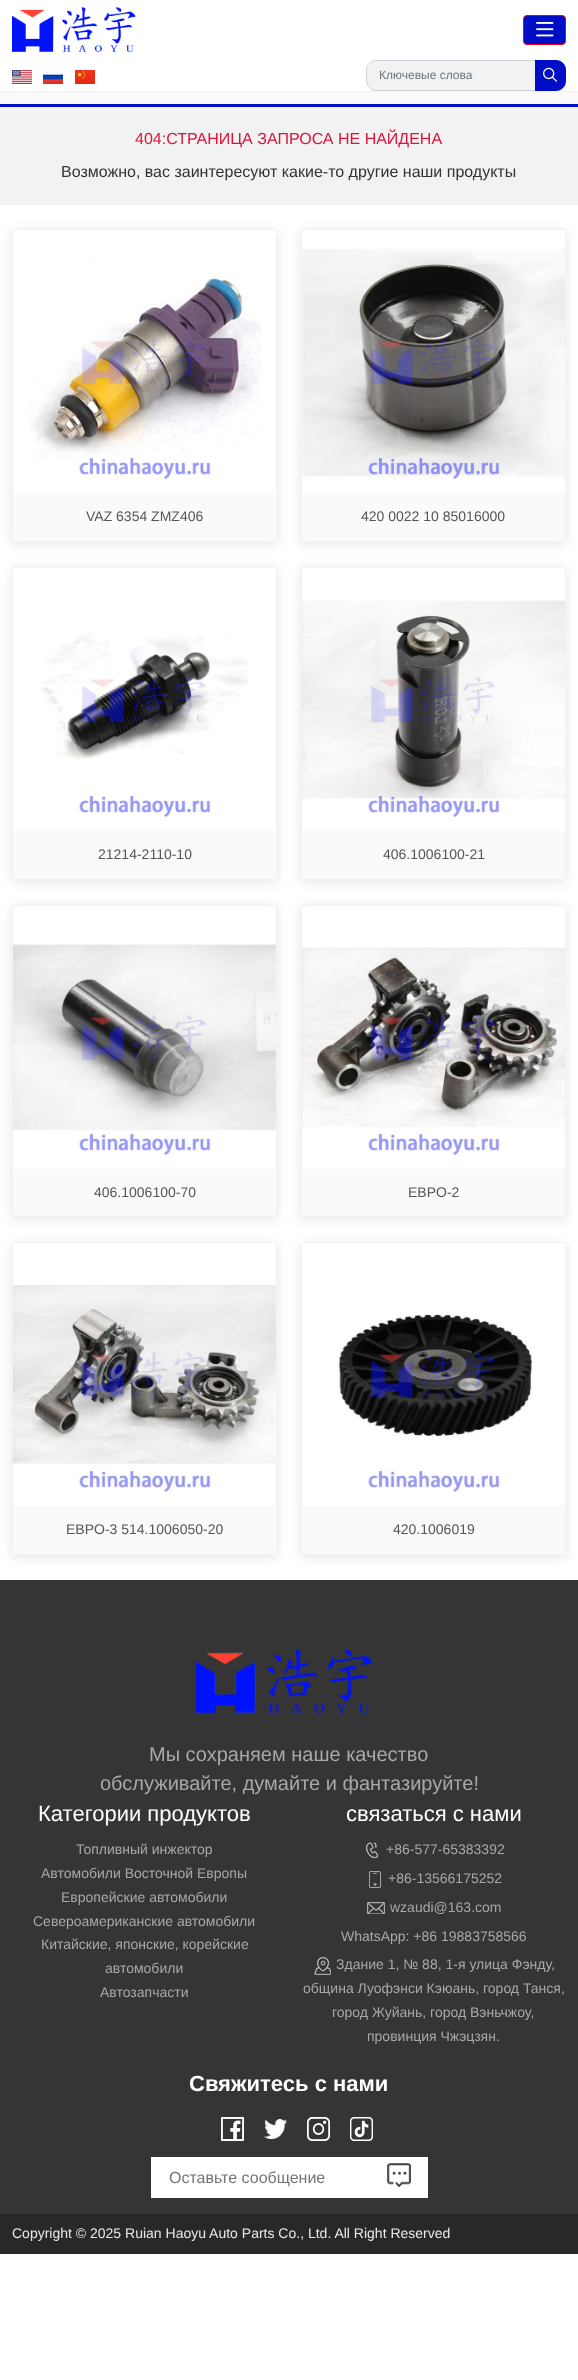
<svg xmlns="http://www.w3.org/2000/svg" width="578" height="2380">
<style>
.a{font:12px Liberation Sans;fill:#6c757d}
.b{font:16px Liberation Sans;fill:#dc143c}
.c{font:16px Liberation Sans;fill:#333}
.d{font:14px Liberation Sans;fill:#555}
.e{font:20px Liberation Sans;fill:#a8a8a8}
.f{font:22px Liberation Sans;fill:#fff}
.g{font:14px Liberation Sans;fill:#a8a8a8}
.h{font:bold 22px Liberation Sans;fill:#fff}
.i{font:16px Liberation Sans;fill:#757575}
.j{font:14px Liberation Sans;fill:#e9e9e9}
</style>
<defs>
<clipPath id="clip1"><path d="M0 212h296v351h-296zm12 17h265v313h-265z" clip-rule="evenodd"/></clipPath>
<clipPath id="clip2"><path d="M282 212h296v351h-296zm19 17h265v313h-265z" clip-rule="evenodd"/></clipPath>
<clipPath id="clip3"><path d="M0 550h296v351h-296zm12 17h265v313h-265z" clip-rule="evenodd"/></clipPath>
<clipPath id="clip4"><path d="M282 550h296v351h-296zm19 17h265v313h-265z" clip-rule="evenodd"/></clipPath>
<clipPath id="clip5"><path d="M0 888h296v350h-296zm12 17h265v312h-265z" clip-rule="evenodd"/></clipPath>
<clipPath id="clip6"><path d="M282 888h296v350h-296zm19 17h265v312h-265z" clip-rule="evenodd"/></clipPath>
<clipPath id="clip7"><path d="M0 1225h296v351h-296zm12 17h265v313h-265z" clip-rule="evenodd"/></clipPath>
<clipPath id="clip8"><path d="M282 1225h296v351h-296zm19 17h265v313h-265z" clip-rule="evenodd"/></clipPath>
</defs>
<rect width="100%" height="100%" fill="#fff"/>
<path fill="#f2f2f2" d="M0 91h578v1H0z"/>
<image href="1.png" x="12" y="6" width="124" height="47"/>
<rect fill="#000ec8" stroke="#e60213" x="523.5" y="15.5" width="42" height="29" rx="3.5"/>
<image href="2.png" x="536" y="22" width="18" height="15"/>
<image href="3.png" x="12" y="70" width="20" height="14"/>
<image href="4.png" x="43" y="71" width="20" height="13"/>
<image href="5.png" x="75" y="70" width="20" height="14"/>
<path fill="#f2f2f2" stroke="#ced4da" d="M376 60.5h159.5v30h-159.5c-5 0-9.5-4.5-9.5-9.5v-11c0-5 4.5-9.5 9.5-9.5z"/>
<path fill="#000ec8" d="M535 60h21c5.5 0 10 4.5 10 10v11c0 5.5-4.5 10-10 10h-21z"/>
<image href="6.png" x="543" y="67" width="14" height="15"/>
<path fill="#fafafa" d="M0 92h578v12H0z"/>
<path fill="#000ec8" d="M0 104h578v3H0z"/>
<path fill="#f2f2f2" d="M0 107h578v98H0z"/>
<g clip-path="url(#clip1)">
<path fill="#0000001a" filter="blur(6px)" d="M12 231h265v313H12z"/>
</g>
<path fill="none" stroke="#f2f2f2" d="M12.5 229.5h264v312H12.5z"/>
<image href="7.png" x="29" y="258" width="232" height="221"/>
<path fill="#fafafa" d="M13 493h263v48H13z"/>
<g clip-path="url(#clip2)">
<path fill="#0000001a" filter="blur(6px)" d="M301 231h265v313H301z"/>
</g>
<path fill="none" stroke="#f2f2f2" d="M301.5 229.5h264v312H301.5z"/>
<image href="8.png" x="302" y="249" width="263" height="234"/>
<path fill="#fafafa" d="M302 493h263v48H302z"/>
<g clip-path="url(#clip3)">
<path fill="#0000001a" filter="blur(6px)" d="M12 569h265v313H12z"/>
</g>
<path fill="none" stroke="#f2f2f2" d="M12.5 567.5h264v312H12.5z"/>
<image href="9.png" x="40" y="634" width="209" height="183"/>
<path fill="#fafafa" d="M13 831h263v48H13z"/>
<g clip-path="url(#clip4)">
<path fill="#0000001a" filter="blur(6px)" d="M301 569h265v313H301z"/>
</g>
<path fill="none" stroke="#f2f2f2" d="M301.5 567.5h264v312H301.5z"/>
<image href="10.png" x="302" y="600" width="263" height="217"/>
<path fill="#fafafa" d="M302 831h263v48H302z"/>
<g clip-path="url(#clip5)">
<path fill="#0000001a" filter="blur(6px)" d="M12 907h265v312H12z"/>
</g>
<path fill="none" stroke="#f2f2f2" d="M12.5 905.5h264v311H12.5z"/>
<image href="11.png" x="13" y="944" width="263" height="211"/>
<path fill="#fafafa" d="M13 1169h263v47H13z"/>
<g clip-path="url(#clip6)">
<path fill="#0000001a" filter="blur(6px)" d="M301 907h265v312H301z"/>
</g>
<path fill="none" stroke="#f2f2f2" d="M301.5 905.5h264v311H301.5z"/>
<image href="12.png" x="302" y="947" width="263" height="208"/>
<path fill="#fafafa" d="M302 1169h263v47H302z"/>
<g clip-path="url(#clip7)">
<path fill="#0000001a" filter="blur(6px)" d="M12 1244h265v313H12z"/>
</g>
<path fill="none" stroke="#f2f2f2" d="M12.5 1242.5h264v312H12.5z"/>
<image href="13.png" x="13" y="1285" width="263" height="207"/>
<path fill="#fafafa" d="M13 1506h263v48H13z"/>
<g clip-path="url(#clip8)">
<path fill="#0000001a" filter="blur(6px)" d="M301 1244h265v313H301z"/>
</g>
<path fill="none" stroke="#f2f2f2" d="M301.5 1242.5h264v312H301.5z"/>
<image href="14.png" x="335" y="1314" width="198" height="178"/>
<path fill="#fafafa" d="M302 1506h263v48H302z"/>
<path fill="#353535" d="M0 1580h578v634H0z"/>
<image href="15.png" x="196" y="1649" width="177" height="65"/>
<image href="16.png" x="366" y="1842" width="12" height="16"/>
<image href="17.png" x="369" y="1871" width="12" height="17"/>
<image href="18.png" x="367" y="1902" width="18" height="12"/>
<image href="19.png" x="314" y="1957" width="17" height="18"/>
<image href="20.png" x="221" y="2117" width="23" height="24"/>
<image href="21.png" x="264" y="2119" width="23" height="20"/>
<image href="22.png" x="307" y="2117" width="23" height="24"/>
<image href="23.png" x="350" y="2117" width="23" height="24"/>
<path fill="#fff" d="M151 2157h277v41H151z"/>
<image href="24.png" x="387" y="2163" width="24" height="24"/>
<path fill="#282828" d="M0 2214h578v40H0z"/>
<text class="a" x="379" y="79">Ключевые слова</text>
<text class="b" x="135" y="144">404:СТРАНИЦА ЗАПРОСА НЕ НАЙДЕНА</text>
<text class="c" x="61" y="177">Возможно, вас заинтересуют какие-то другие наши продукты</text>
<text class="d" x="86" y="521">VAZ 6354 ZMZ406</text>
<text class="d" x="361" y="521">420 0022 10 85016000</text>
<text class="d" x="98" y="859">21214-2110-10</text>
<text class="d" x="383" y="859">406.1006100-21</text>
<text class="d" x="94" y="1197">406.1006100-70</text>
<text class="d" x="408" y="1197">EBPO-2</text>
<text class="d" x="66" y="1534">EBPO-3 514.1006050-20</text>
<text class="d" x="393" y="1534">420.1006019</text>
<text class="e" x="149" y="1761">Мы сохраняем наше качество</text>
<text class="e" x="100" y="1790">обслуживайте, думайте и фантазируйте!</text>
<text class="f" x="38" y="1821">Категории продуктов</text>
<text class="g" x="76" y="1854">Топливный инжектор</text>
<text class="g" x="41" y="1878">Автомобили Восточной Европы</text>
<text class="g" x="61" y="1902">Европейские автомобили</text>
<text class="g" x="33" y="1926">Североамериканские автомобили</text>
<text class="g" x="41" y="1949">Китайские, японские, корейские</text>
<text class="g" x="105" y="1973">автомобили</text>
<text class="g" x="100" y="1997">Автозапчасти</text>
<text class="f" x="346" y="1821">связаться с нами</text>
<text class="g" x="386" y="1854">+86-577-65383392</text>
<text class="g" x="388" y="1883">+86-13566175252</text>
<text class="g" x="390" y="1912">wzaudi@163.com</text>
<text class="g" x="341" y="1941">WhatsApp: +86 19883758566</text>
<text class="g" x="336" y="1969">Здание 1, № 88, 1-я улица Фэнду,</text>
<text class="g" x="303" y="1993">община Луофэнси Кэюань, город Танся,</text>
<text class="g" x="332" y="2017">город Жуйань, город Вэньчжоу,</text>
<text class="g" x="367" y="2041">провинция Чжэцзян.</text>
<text class="h" x="189" y="2091">Свяжитесь с нами</text>
<text class="i" x="169" y="2183">Оставьте сообщение</text>
<text class="j" x="12" y="2238">Copyright © 2025 Ruian Haoyu Auto Parts Co., Ltd. All Right Reserved</text>
</svg>
